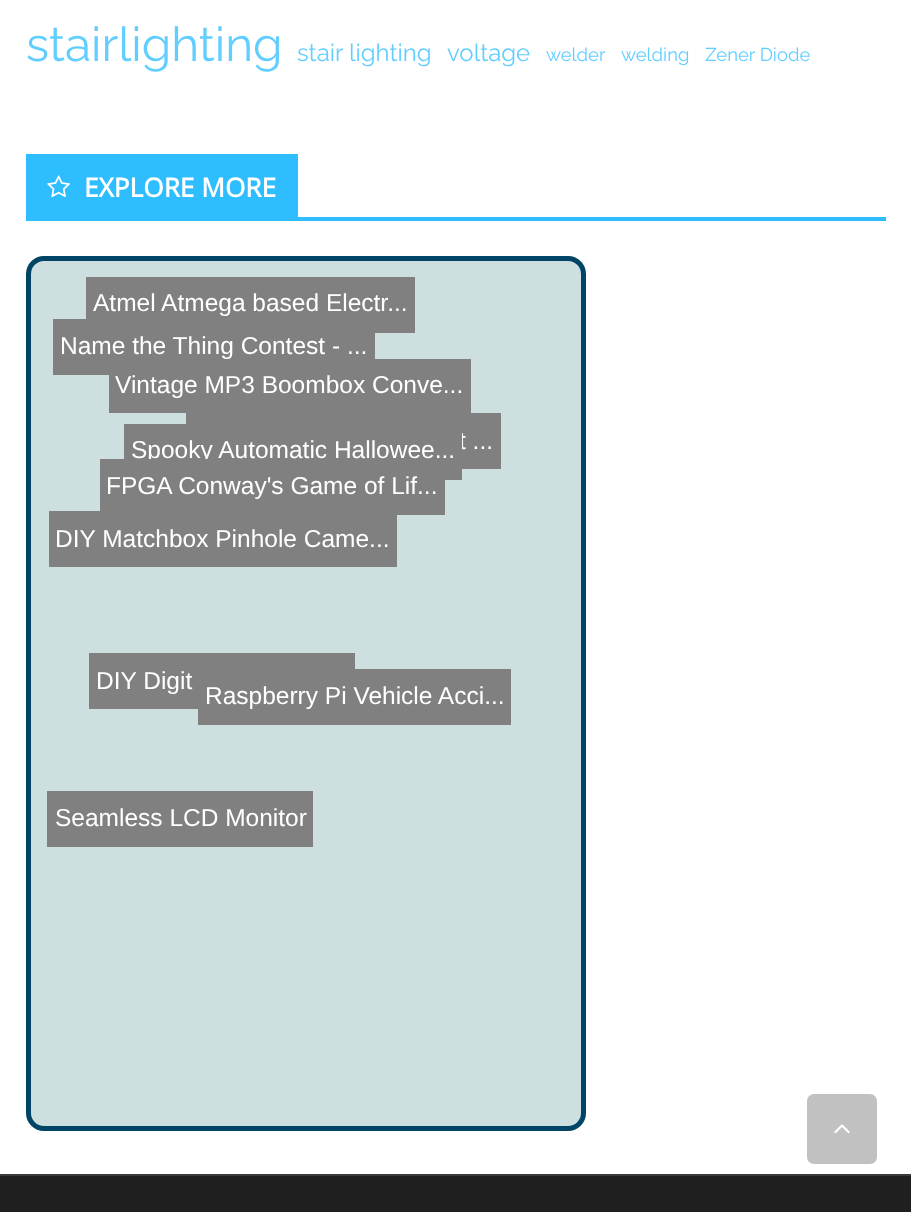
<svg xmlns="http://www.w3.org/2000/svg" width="911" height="1212">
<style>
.a{font:100 47.75px Raleway;fill:#62ceff}
.b{font:100 24px Raleway;fill:#62ceff}
.c{font:100 18.5px Raleway;fill:#62ceff}
.d{font:bold 26.25px Open Sans;fill:#fff}
.e{font:24.5px Liberation Sans;fill:#fff}
</style>
<rect width="100%" height="100%" fill="#fff"/>
<path fill="#2ebdff" d="M26 217h860v4H26z"/>
<path fill="#2ebdff" d="M26 154h272v63H26z"/>
<image href="1.png" x="47" y="175" width="23" height="23"/>
<rect fill="#cedfe0" stroke="#046" stroke-width="5" x="28.5" y="258.5" width="555" height="870" rx="15.5"/>
<path fill="#808080" d="M86 277h329v56H86z"/>
<path fill="#808080" d="M109 359h362v54H109z"/>
<path fill="#808080" d="M53 319h322v56H53z"/>
<path fill="#808080" d="M186 413h315v56H186z"/>
<path fill="#808080" d="M49 511h348v56H49z"/>
<path fill="#808080" d="M89 653h266v56H89z"/>
<path fill="#808080" d="M198 669h313v56H198z"/>
<path fill="#808080" d="M47 791h266v56H47z"/>
<path fill="#1f1f1f" d="M0 1176h911v36H0z"/>
<path fill="#3a3a3a" d="M0 1174h911v2H0z"/>
<rect fill="#c1c1c1" x="807" y="1094" width="70" height="70" rx="7"/>
<image href="2.png" x="834" y="1124" width="16" height="10"/>
<text class="a" x="26" y="61">stairlighting</text>
<text class="b" x="297" y="61">stair lighting</text>
<text class="b" x="447" y="61">voltage</text>
<text class="c" x="546" y="61">welder</text>
<text class="c" x="621" y="61">welding</text>
<text class="c" x="705" y="61">Zener Diode</text>
<text class="d" x="84" y="197">EXPLORE MORE</text>
<text class="e" x="93" y="311">Atmel Atmega based Electr...</text>
<text class="e" x="60" y="354">Name the Thing Contest - ...</text>
<text class="e" x="115" y="393">Vintage MP3 Boombox Conve...</text>
<text class="e" x="459" y="449">t ...</text>
<path fill="#808080" d="M124 424h338v56H124z"/>
<text class="e" x="131" y="458">Spooky Automatic Hallowee...</text>
<path fill="#808080" d="M100 459h345v56H100z"/>
<text class="e" x="106" y="494">FPGA Conway's Game of Lif...</text>
<text class="e" x="55" y="547">DIY Matchbox Pinhole Came...</text>
<text class="e" x="96" y="689">DIY Digit</text>
<text class="e" x="205" y="704">Raspberry Pi Vehicle Acci...</text>
<text class="e" x="55" y="826">Seamless LCD Monitor</text>
</svg>
